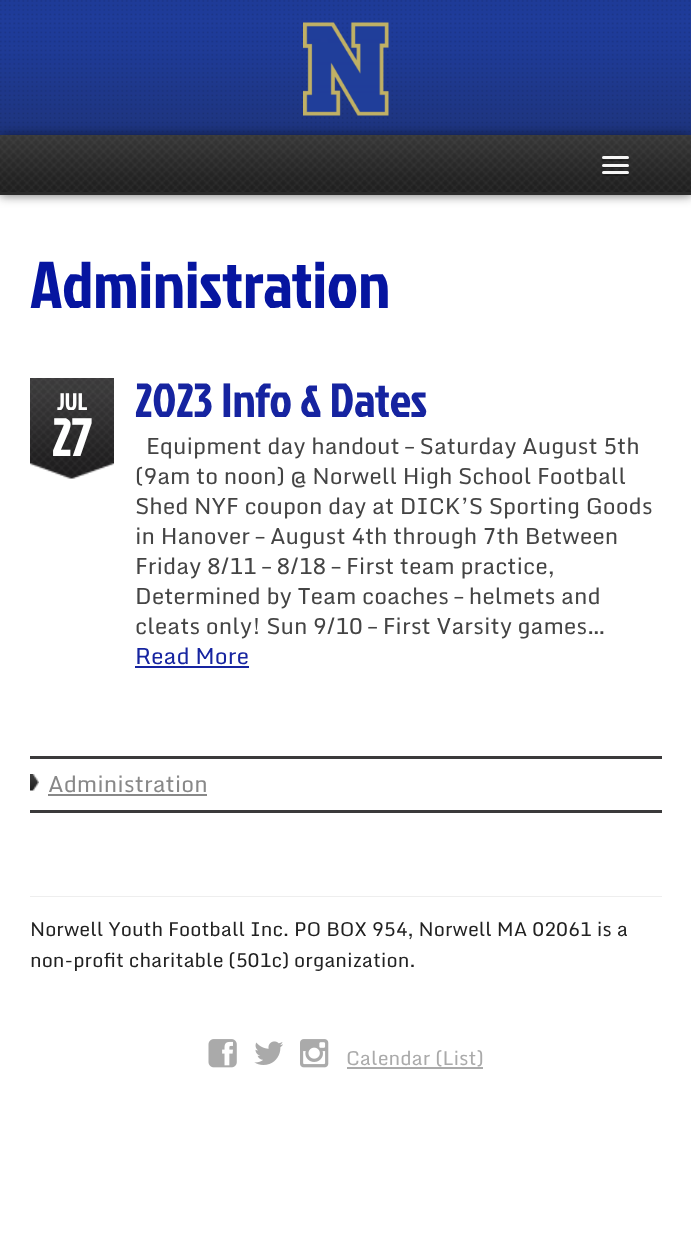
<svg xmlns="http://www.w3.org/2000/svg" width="691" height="1259">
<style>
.a{font:66px Jockey One;fill:#0615a0}
.b{font:24px Jockey One;fill:#fff}
.c{font:54px Jockey One;fill:#fff}
.d{font:48px Jockey One;fill:#1624a0}
.e{font:22.5px Monda;fill:#444}
.f{font:22.5px Monda;fill:#1624a0}
.g{font:22.5px Monda;fill:#888}
.h{font:19.5px Monda;fill:#222}
.i{font:19.5px Monda;fill:#aaa}
</style>
<rect width="100%" height="100%" fill="#fff"/>
<path fill="#1f3c9a" d="M0 0h691v135H0z"/>
<image href="1.png" x="0" y="0" width="691" height="135"/>
<image href="2.png" x="303" y="22" width="86" height="94"/>
<path fill="#00000080" filter="blur(6px)" d="M0 135h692v60H0z"/>
<path fill="#00000012" filter="blur(3px)" d="M0 137h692v60H0z"/>
<path fill="#2a2a2a" d="M0 192h691v3H0z"/>
<image href="3.png" x="0" y="135" width="691" height="57"/>
<path fill="#00000040" d="M602 159c-1.5 3 5.5 2 5.5 2h20.5c1-.5 1.5-2 .5-3l-1.5 1c-2 .5-24 .5-25 0z"/>
<rect fill="#f5f5f5" x="602" y="156" width="27" height="3" rx="1.5"/>
<path fill="#00000040" d="M602 166c-.5 3 5 2 5.5 2h20c1.5 0 2-2 1-2.5l-1 1c-1.5 .5-25 0-25.5-.5z"/>
<rect fill="#f5f5f5" x="602" y="164" width="27" height="3" rx="1.5"/>
<path fill="#00000040" d="M602 174c-1.5 3 5.5 2 5.5 2h20.5c1-.5 1.5-2 .5-3l-1.5 1c-2 .5-24 .5-25 0z"/>
<rect fill="#f5f5f5" x="602" y="171" width="27" height="3" rx="1.5"/>
<image href="4.png" x="30" y="378" width="84" height="101"/>
<path fill="#1624a0" d="M135 666h114v2H135z"/>
<path fill="#3b3a3b" d="M30 810h632v3H30z"/>
<path fill="#3b3a3b" d="M30 756h632v3H30z"/>
<image href="5.png" x="30" y="774" width="9" height="17"/>
<path fill="#888" d="M48 794h159v2H48z"/>
<path fill="#eee" d="M30 896h632v1H30z"/>
<image href="6.png" x="208" y="1039" width="29" height="29"/>
<image href="7.png" x="254" y="1041" width="29" height="24"/>
<image href="8.png" x="300" y="1039" width="29" height="29"/>
<path fill="#aaa" d="M347 1067h136v2H347z"/>
<text class="a" x="30" y="308">Administration</text>
<text class="b" x="57" y="410">JUL</text>
<text class="c" x="52" y="456">27</text>
<text class="d" x="135" y="417">2023 Info &amp; Dates</text>
<text class="e" x="146" y="454">Equipment day handout – Saturday August 5th</text>
<text class="e" x="135" y="484">(9am to noon) @ Norwell High School Football</text>
<text class="e" x="135" y="514">Shed NYF coupon day at DICK’S Sporting Goods</text>
<text class="e" x="135" y="544">in Hanover – August 4th through 7th Between</text>
<text class="e" x="135" y="574">Friday 8/11 – 8/18 – First team practice,</text>
<text class="e" x="135" y="604">Determined by Team coaches – helmets and</text>
<text class="e" x="135" y="634">cleats only! Sun 9/10 – First Varsity games…</text>
<text class="f" x="135" y="664">Read More</text>
<text class="g" x="48" y="792">Administration</text>
<text class="h" x="30" y="936">Norwell Youth Football Inc. PO BOX 954, Norwell MA 02061 is a</text>
<text class="h" x="30" y="967">non-profit charitable (501c) organization.</text>
<text class="i" x="346" y="1065">Calendar (List)</text>
</svg>
